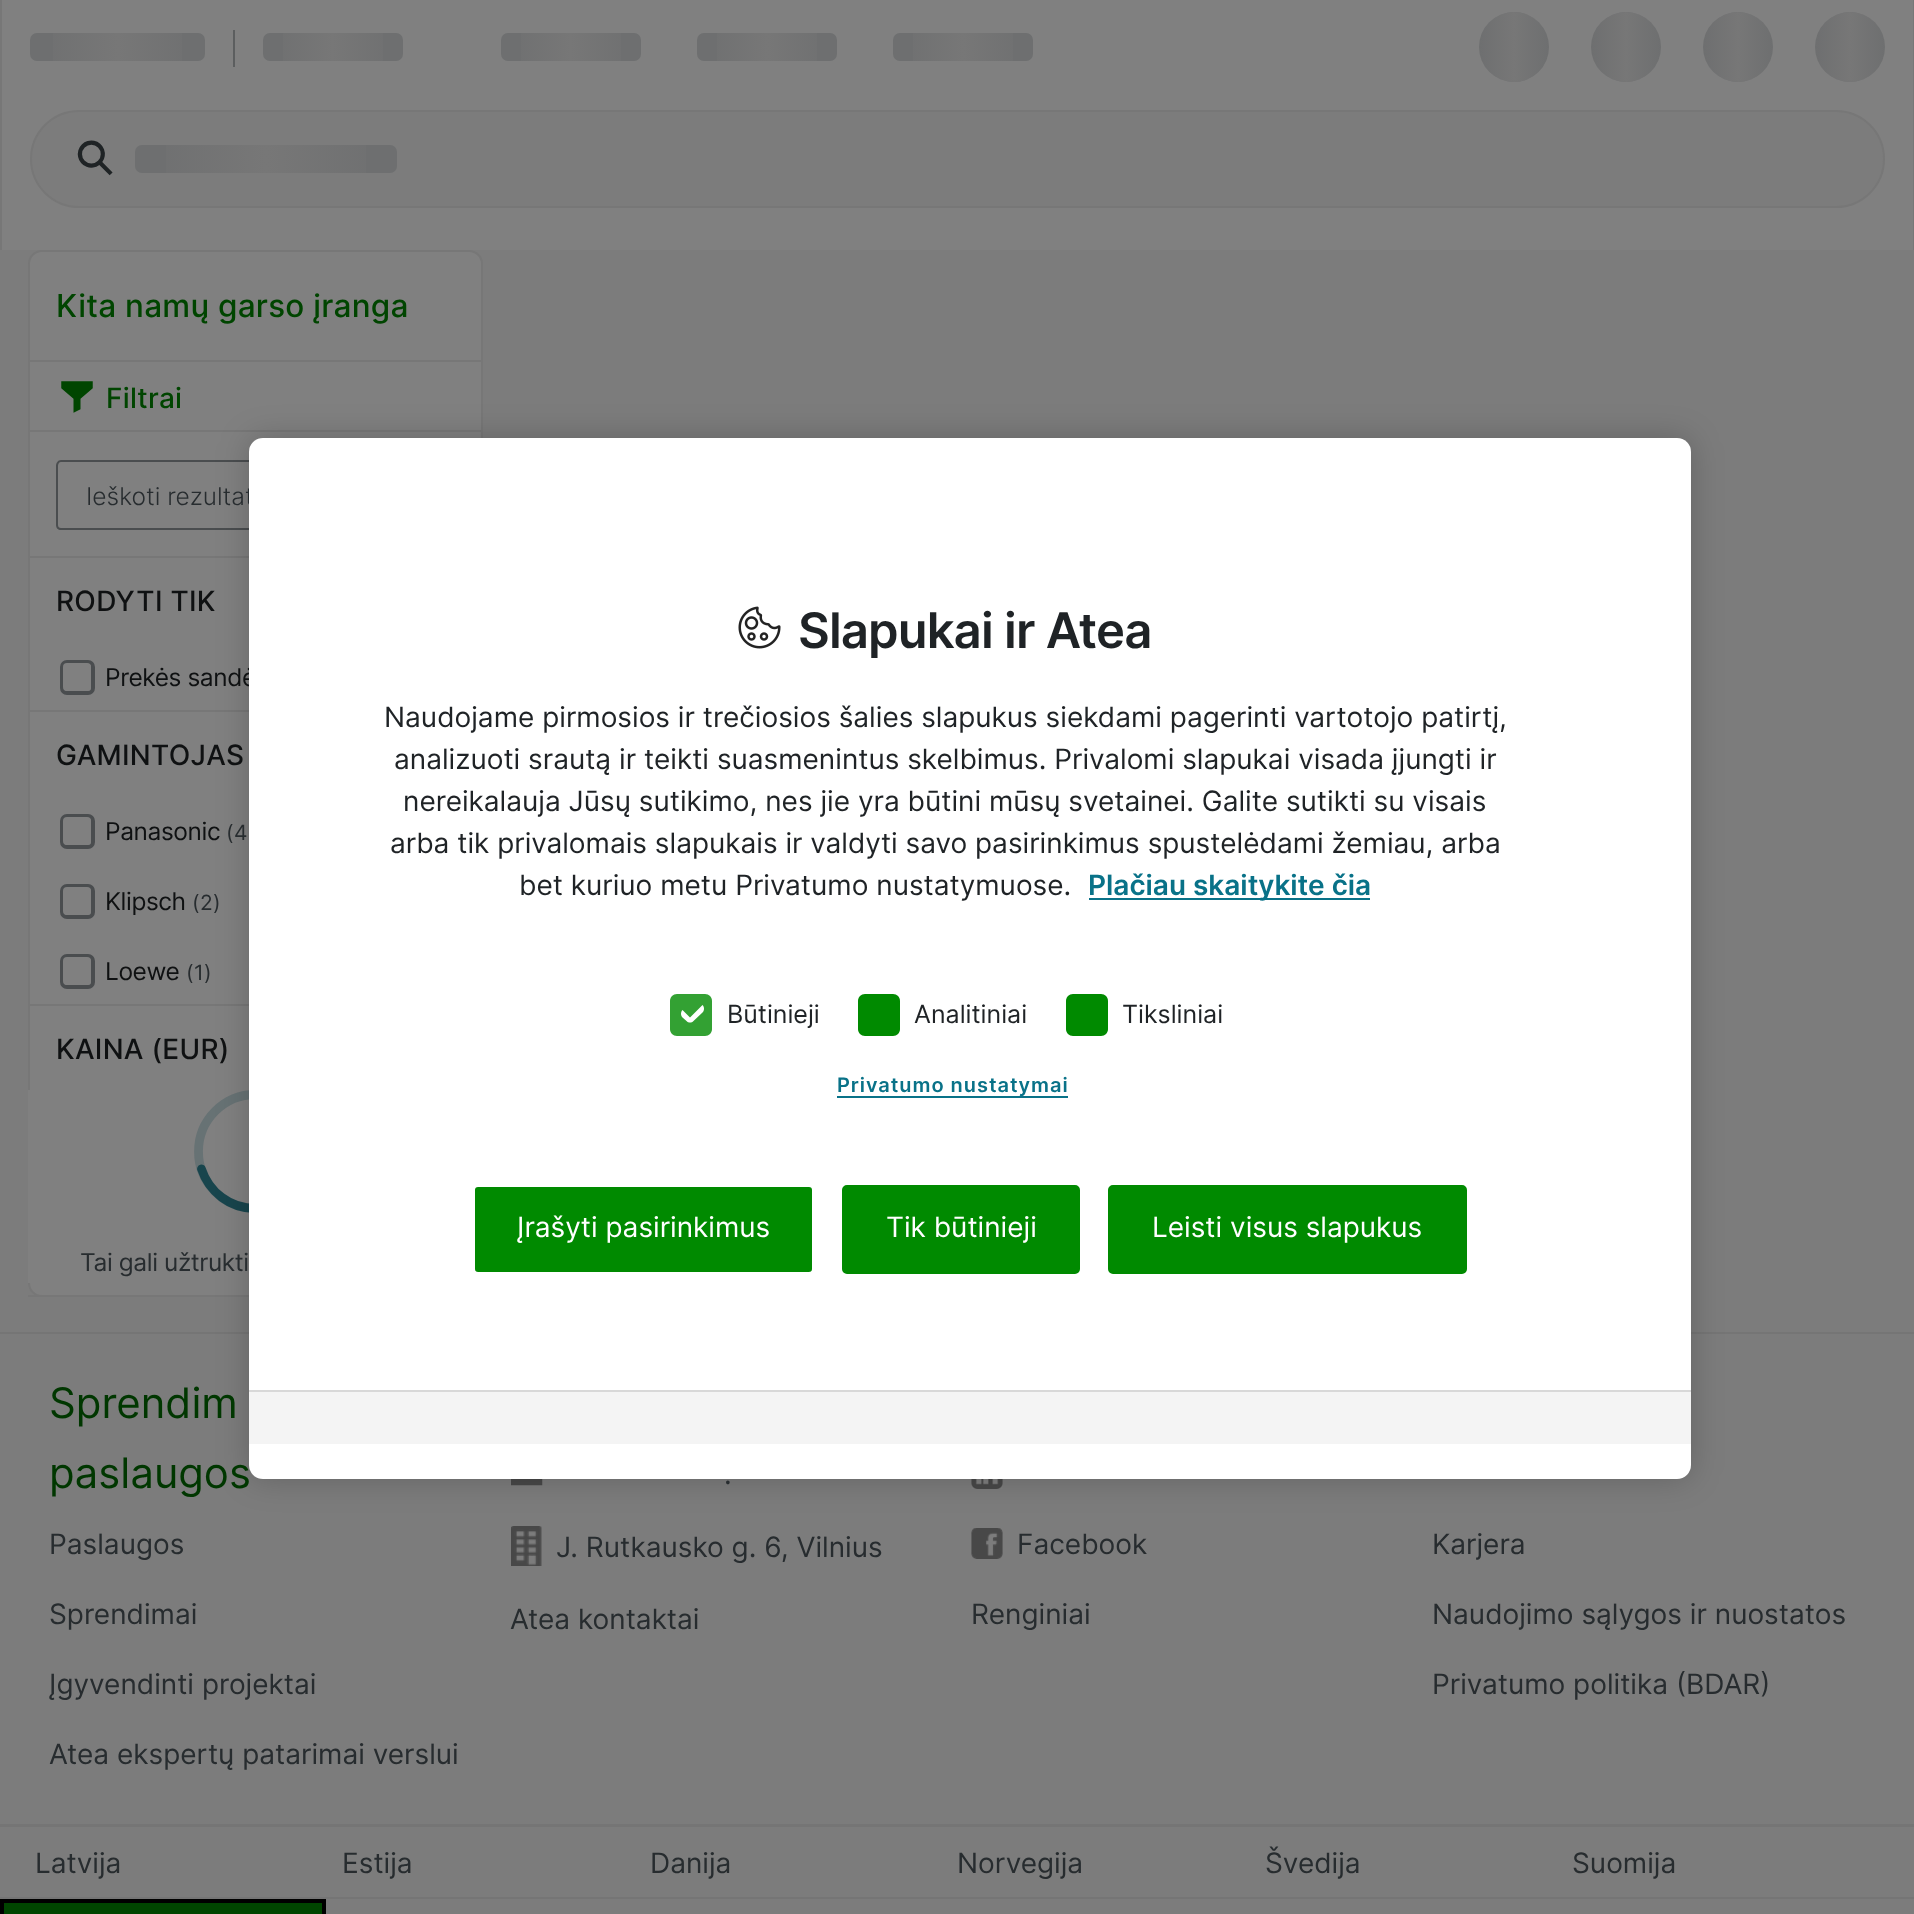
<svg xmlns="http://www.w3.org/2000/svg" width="1914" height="1914">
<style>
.a{font:500 31.5px Inter;letter-spacing:0.25px;fill:#004500}
.b{font:500 28px Inter;letter-spacing:0.3px;fill:#004500}
.c{font:300 24.5px Inter;fill:#272c2f}
.d{font:500 28px Inter;letter-spacing:0.3px;fill:#0f1112}
.e{font:24.5px Inter;letter-spacing:-0.4px;fill:#0f1112}
.f{font:21px Inter;letter-spacing:0.3px;fill:#272c2f}
.g{font:24.5px Inter;letter-spacing:-0.4px;fill:#272c2f}
.h{font:42px Inter;fill:#003700}
.i{font:28px Inter;fill:#272c2f}
.j{font:600 49px Inter;letter-spacing:-0.9px;fill:#1f2326}
.k{font:28px Inter;fill:#1f2326}
.l{font:600 28px Inter;fill:#097288}
.m{font:25px Inter;fill:#1f2326}
.n{font:600 20px Inter;letter-spacing:1px;fill:#097288}
.o{font:28px Inter;fill:#fff}
</style>
<defs>
<linearGradient id="g1" gradientUnits="userSpaceOnUse" x1="30" y1="47" x2="205" y2="47"><stop offset="0" stop-color="#777" stop-opacity="0"/><stop offset="0.5" stop-color="#777"/><stop offset="1" stop-color="#777" stop-opacity="0"/></linearGradient>
<linearGradient id="g2" gradientUnits="userSpaceOnUse" x1="263" y1="47" x2="403" y2="47"><stop offset="0" stop-color="#777" stop-opacity="0"/><stop offset="0.5" stop-color="#777"/><stop offset="1" stop-color="#777" stop-opacity="0"/></linearGradient>
<linearGradient id="g3" gradientUnits="userSpaceOnUse" x1="501" y1="47" x2="641" y2="47"><stop offset="0" stop-color="#777" stop-opacity="0"/><stop offset="0.5" stop-color="#777"/><stop offset="1" stop-color="#777" stop-opacity="0"/></linearGradient>
<linearGradient id="g4" gradientUnits="userSpaceOnUse" x1="697" y1="47" x2="837" y2="47"><stop offset="0" stop-color="#777" stop-opacity="0"/><stop offset="0.5" stop-color="#777"/><stop offset="1" stop-color="#777" stop-opacity="0"/></linearGradient>
<linearGradient id="g5" gradientUnits="userSpaceOnUse" x1="893" y1="47" x2="1033" y2="47"><stop offset="0" stop-color="#777" stop-opacity="0"/><stop offset="0.5" stop-color="#777"/><stop offset="1" stop-color="#777" stop-opacity="0"/></linearGradient>
<linearGradient id="g6" gradientUnits="userSpaceOnUse" x1="1479" y1="47" x2="1549" y2="47"><stop offset="0" stop-color="#777" stop-opacity="0"/><stop offset="0.5" stop-color="#777"/><stop offset="1" stop-color="#777" stop-opacity="0"/></linearGradient>
<linearGradient id="g7" gradientUnits="userSpaceOnUse" x1="1591" y1="47" x2="1661" y2="47"><stop offset="0" stop-color="#777" stop-opacity="0"/><stop offset="0.5" stop-color="#777"/><stop offset="1" stop-color="#777" stop-opacity="0"/></linearGradient>
<linearGradient id="g8" gradientUnits="userSpaceOnUse" x1="1703" y1="47" x2="1773" y2="47"><stop offset="0" stop-color="#777" stop-opacity="0"/><stop offset="0.5" stop-color="#777"/><stop offset="1" stop-color="#777" stop-opacity="0"/></linearGradient>
<linearGradient id="g9" gradientUnits="userSpaceOnUse" x1="1815" y1="47" x2="1885" y2="47"><stop offset="0" stop-color="#777" stop-opacity="0"/><stop offset="0.5" stop-color="#777"/><stop offset="1" stop-color="#777" stop-opacity="0"/></linearGradient>
<linearGradient id="g10" gradientUnits="userSpaceOnUse" x1="135" y1="159" x2="397" y2="159"><stop offset="0" stop-color="#777" stop-opacity="0"/><stop offset="0.5" stop-color="#777"/><stop offset="1" stop-color="#777" stop-opacity="0"/></linearGradient>
<clipPath id="clip1"><path d="M28 250h455v112H28z"/></clipPath>
<clipPath id="clip2"><path d="M28 362h455v70H28z"/></clipPath>
<clipPath id="clip3"><path d="M28 432h455v126H28z"/></clipPath>
<clipPath id="clip4"><path d="M28 558h455v154H28z"/></clipPath>
<clipPath id="clip5"><path d="M28 712h455v294H28z"/></clipPath>
<clipPath id="clip6"><path d="M28 1006h455v291H28z"/></clipPath>
</defs>
<rect width="100%" height="100%" fill="#7c7c7c"/>
<path fill="#777" d="M1913 0h1v250H1913z"/>
<path fill="#777" d="M0 0h2v250H0z"/>
<path fill="#808080" d="M2 0h1911v250H2z"/>
<rect fill="#6e6f70" x="30" y="33" width="175" height="28" rx="7"/>
<path fill="url(#g1)" d="M53 33h129v28H53z"/>
<path fill="#5c5e5f" d="M233 30h2v37H233z"/>
<rect fill="#6e6f70" x="263" y="33" width="140" height="28" rx="7"/>
<path fill="url(#g2)" d="M283 33h100v28H283z"/>
<rect fill="#6e6f70" x="501" y="33" width="140" height="28" rx="7"/>
<path fill="url(#g3)" d="M521 33h100v28H521z"/>
<rect fill="#6e6f70" x="697" y="33" width="140" height="28" rx="7"/>
<path fill="url(#g4)" d="M717 33h100v28H717z"/>
<rect fill="#6e6f70" x="893" y="33" width="140" height="28" rx="7"/>
<path fill="url(#g5)" d="M913 33h100v28H913z"/>
<circle fill="#6e6f70" cx="1514" cy="47" r="35"/>
<circle fill="url(#g6)" cx="1514" cy="47" r="35"/>
<circle fill="#6e6f70" cx="1626" cy="47" r="35"/>
<circle fill="url(#g7)" cx="1626" cy="47" r="35"/>
<circle fill="#6e6f70" cx="1738" cy="47" r="35"/>
<circle fill="url(#g8)" cx="1738" cy="47" r="35"/>
<circle fill="#6e6f70" cx="1850" cy="47" r="35"/>
<circle fill="url(#g9)" cx="1850" cy="47" r="35"/>
<rect fill="#7c7c7c" stroke="#777" stroke-width="2" x="31" y="111" width="1853" height="96" rx="48"/>
<image href="1.png" x="77" y="140" width="36" height="36"/>
<rect fill="#6e6f70" x="135" y="145" width="262" height="28" rx="7"/>
<path fill="url(#g10)" d="M166 145h200v28H166z"/>
<rect fill="#808080" stroke="#777" stroke-width="2" x="29" y="251" width="453" height="1045" rx="13"/>
<g clip-path="url(#clip1)">
<path fill="#777" fill-rule="evenodd" d="M-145 77h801v459h-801zm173 170h455l1 1v112h-1h-455h-1v-112z"/>
</g>
<g clip-path="url(#clip2)">
<path fill="#777" fill-rule="evenodd" d="M-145 189h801v417h-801zm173 170h455l1 1v70h-1h-455h-1v-70z"/>
</g>
<image href="2.png" x="61" y="381" width="32" height="32"/>
<g clip-path="url(#clip3)">
<path fill="#777" fill-rule="evenodd" d="M-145 259h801v473h-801zm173 170h455l1 1v126h-1h-455h-1v-126z"/>
</g>
<path fill="#4a4d4f" fill-rule="evenodd" d="M61 460h324v70h-324c-3 0-5-2-5-5v-59c0-3 2-6 5-6zm0 2h324v66h-324c-2 0-3-1-3-3v-59c0-2 1-4 3-4z"/>
<g clip-path="url(#clip4)">
<path fill="#777" fill-rule="evenodd" d="M-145 385h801v501h-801zm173 170h455l1 1v154h-1h-455h-1v-154z"/>
</g>
<rect fill="none" stroke="#4a4d4f" stroke-width="4" x="62" y="662" width="31" height="31" rx="5"/>
<rect fill="#808080" x="63" y="663" width="28" height="28" rx="4"/>
<g clip-path="url(#clip5)">
<path fill="#777" fill-rule="evenodd" d="M-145 539h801v641h-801zm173 170h455l1 1v294h-1h-455h-1v-294z"/>
</g>
<rect fill="none" stroke="#4a4d4f" stroke-width="4" x="62" y="816" width="31" height="31" rx="5"/>
<rect fill="#808080" x="63" y="817" width="28" height="28" rx="4"/>
<rect fill="none" stroke="#4a4d4f" stroke-width="4" x="62" y="886" width="31" height="31" rx="5"/>
<rect fill="#808080" x="63" y="887" width="28" height="28" rx="4"/>
<rect fill="none" stroke="#4a4d4f" stroke-width="4" x="62" y="956" width="31" height="31" rx="5"/>
<rect fill="#808080" x="63" y="957" width="28" height="28" rx="4"/>
<g clip-path="url(#clip6)">
<path fill="#777" fill-rule="evenodd" d="M-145 833h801v637h-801zm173 170h455l1 1v290l-1 1h-455l-1-1v-290z"/>
</g>
<path fill="#808080" d="M28 1090h2v193H28z"/>
<path fill="none" stroke="#677274" stroke-width="8.8" d="M255.5 1094.5c31.5 0 57 25.5 57 57c0 31.5-25.5 57-57 57c-31.5 0-57-25.5-57-57c0-31.5 25.5-57 57-57"/>
<path fill="none" stroke="#053944cc" stroke-width="8.8" stroke-linecap="round" d="M255.5 1094.5c31.5 0 57 25.5 57 57c0 31.5-25.5 57-57 57c-25.5 0-46.5-16.5-54-39.5"/>
<path fill="#757575" d="M0 1332h1914v2H0z"/>
<path fill="#757575" d="M0 1824h1914v3H0z"/>
<image href="3.png" x="511" y="1479" width="32" height="7"/>
<image href="4.png" x="511" y="1526" width="31" height="40"/>
<image href="5.png" x="971" y="1479" width="32" height="10"/>
<image href="6.png" x="971" y="1528" width="32" height="31"/>
<path fill="#757575" d="M0 1897h1914v2H0z"/>
<rect fill="#00000033" filter="blur(16px)" x="249" y="438" width="1442" height="1041" rx="14"/>
<path fill="#004500" stroke="#000" stroke-width="4" d="M2 1901h322v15H2z"/>
<text class="a" x="56" y="317">Kita namų garso įranga</text>
<text class="b" x="106" y="408">Filtrai</text>
<text class="c" x="86" y="505">Ieškoti rezultat</text>
<text class="d" x="56" y="611">RODYTI TIK</text>
<text class="e" x="105" y="686">Prekės sandė</text>
<text class="d" x="56" y="765">GAMINTOJAS</text>
<text class="e" x="105" y="840">Panasonic</text>
<text class="f" x="226" y="840">(4</text>
<text class="e" x="105" y="910">Klipsch</text>
<text class="f" x="192" y="910">(2)</text>
<text class="e" x="105" y="980">Loewe</text>
<text class="f" x="186" y="980">(1)</text>
<text class="d" x="56" y="1059">KAINA (EUR)</text>
<text class="g" x="80" y="1271">Tai gali užtrukti</text>
<text class="h" x="49" y="1418">Sprendim</text>
<text class="h" x="49" y="1488">paslaugos</text>
<text class="i" x="49" y="1554">Paslaugos</text>
<text class="i" x="49" y="1624">Sprendimai</text>
<text class="i" x="49" y="1694">Įgyvendinti projektai</text>
<text class="i" x="49" y="1764">Atea ekspertų patarimai verslui</text>
<text class="i" x="724" y="1484">.</text>
<text class="i" x="556" y="1557">J. Rutkausko g. 6, Vilnius</text>
<text class="i" x="510" y="1629">Atea kontaktai</text>
<text class="i" x="1017" y="1554">Facebook</text>
<text class="i" x="971" y="1624">Renginiai</text>
<text class="i" x="1432" y="1554">Karjera</text>
<text class="i" x="1432" y="1624">Naudojimo sąlygos ir nuostatos</text>
<text class="i" x="1432" y="1694">Privatumo politika (BDAR)</text>
<text class="i" x="35" y="1873">Latvija</text>
<text class="i" x="342" y="1873">Estija</text>
<text class="i" x="650" y="1873">Danija</text>
<text class="i" x="957" y="1873">Norvegija</text>
<text class="i" x="1265" y="1873">Švedija</text>
<text class="i" x="1572" y="1873">Suomija</text>
<rect fill="#fff" x="249" y="438" width="1442" height="1041" rx="14"/>
<image href="7.png" x="738" y="606" width="43" height="43"/>
<text class="j" x="798" y="648">Slapukai ir Atea</text>
<text class="k" x="384" y="727">Naudojame pirmosios ir trečiosios šalies slapukus siekdami pagerinti vartotojo patirtį,</text>
<text class="k" x="394" y="769">analizuoti srautą ir teikti suasmenintus skelbimus. Privalomi slapukai visada įjungti ir</text>
<text class="k" x="403" y="811">nereikalauja Jūsų sutikimo, nes jie yra būtini mūsų svetainei. Galite sutikti su visais</text>
<text class="k" x="390" y="853">arba tik privalomais slapukais ir valdyti savo pasirinkimus spustelėdami žemiau, arba</text>
<text class="k" x="519" y="895">bet kuriuo metu Privatumo nustatymuose.</text>
<path fill="#097288" d="M1089 898h281v2H1089z"/>
<text class="l" x="1088" y="895">Plačiau skaitykite čia</text>
<path fill="#33a133" d="M677 994h28c4 0 7 3 7 7v28c0 4-3 7-7 7h-28c-4 0-7-3-7-7v-28c0-4 3-7 7-7z"/>
<path fill="#fff" fill-rule="evenodd" d="M682.5 1010l9-8.5c2-2 5-2 7 0l4 3.5c2 2 2 5.5 0 7.5l-9 8.5c-2 2-5 2-7 0l-4-3.5c-2-2-2-5.5 0-7.5zm0 0l9-8.5c2-2 5-2 7 0l4 3.5l-12.5 12.5z"/>
<text class="m" x="727" y="1023">Būtinieji</text>
<path fill="#008a00" d="M865 994h28c4 0 7 3 7 7v28c0 4-3 7-7 7h-28c-4 0-7-3-7-7v-28c0-4 3-7 7-7z"/>
<text class="m" x="914" y="1023">Analitiniai</text>
<path fill="#008a00" d="M1073 994h28c4 0 7 3 7 7v28c0 4-3 7-7 7h-28c-4 0-7-3-7-7v-28c0-4 3-7 7-7z"/>
<text class="m" x="1122" y="1023">Tiksliniai</text>
<path fill="#097288" d="M837 1096h231v2H837z"/>
<text class="n" x="837" y="1092">Privatumo nustatymai</text>
<rect fill="#008a00" stroke="#fff" stroke-width="2" x="474" y="1186" width="339" height="87" rx="4"/>
<text class="o" x="517" y="1237">Įrašyti pasirinkimus</text>
<rect fill="#008a00" stroke="#008a00" stroke-width="2" x="843" y="1186" width="236" height="87" rx="4"/>
<text class="o" x="886" y="1237">Tik būtinieji</text>
<rect fill="#008a00" stroke="#008a00" stroke-width="2" x="1109" y="1186" width="357" height="87" rx="4"/>
<text class="o" x="1152" y="1237">Leisti visus slapukus</text>
<path fill="#f4f4f4" d="M249 1392h1442v52H249z"/>
<path fill="#d8d8d8" d="M249 1390h1442v2H249z"/>
</svg>
